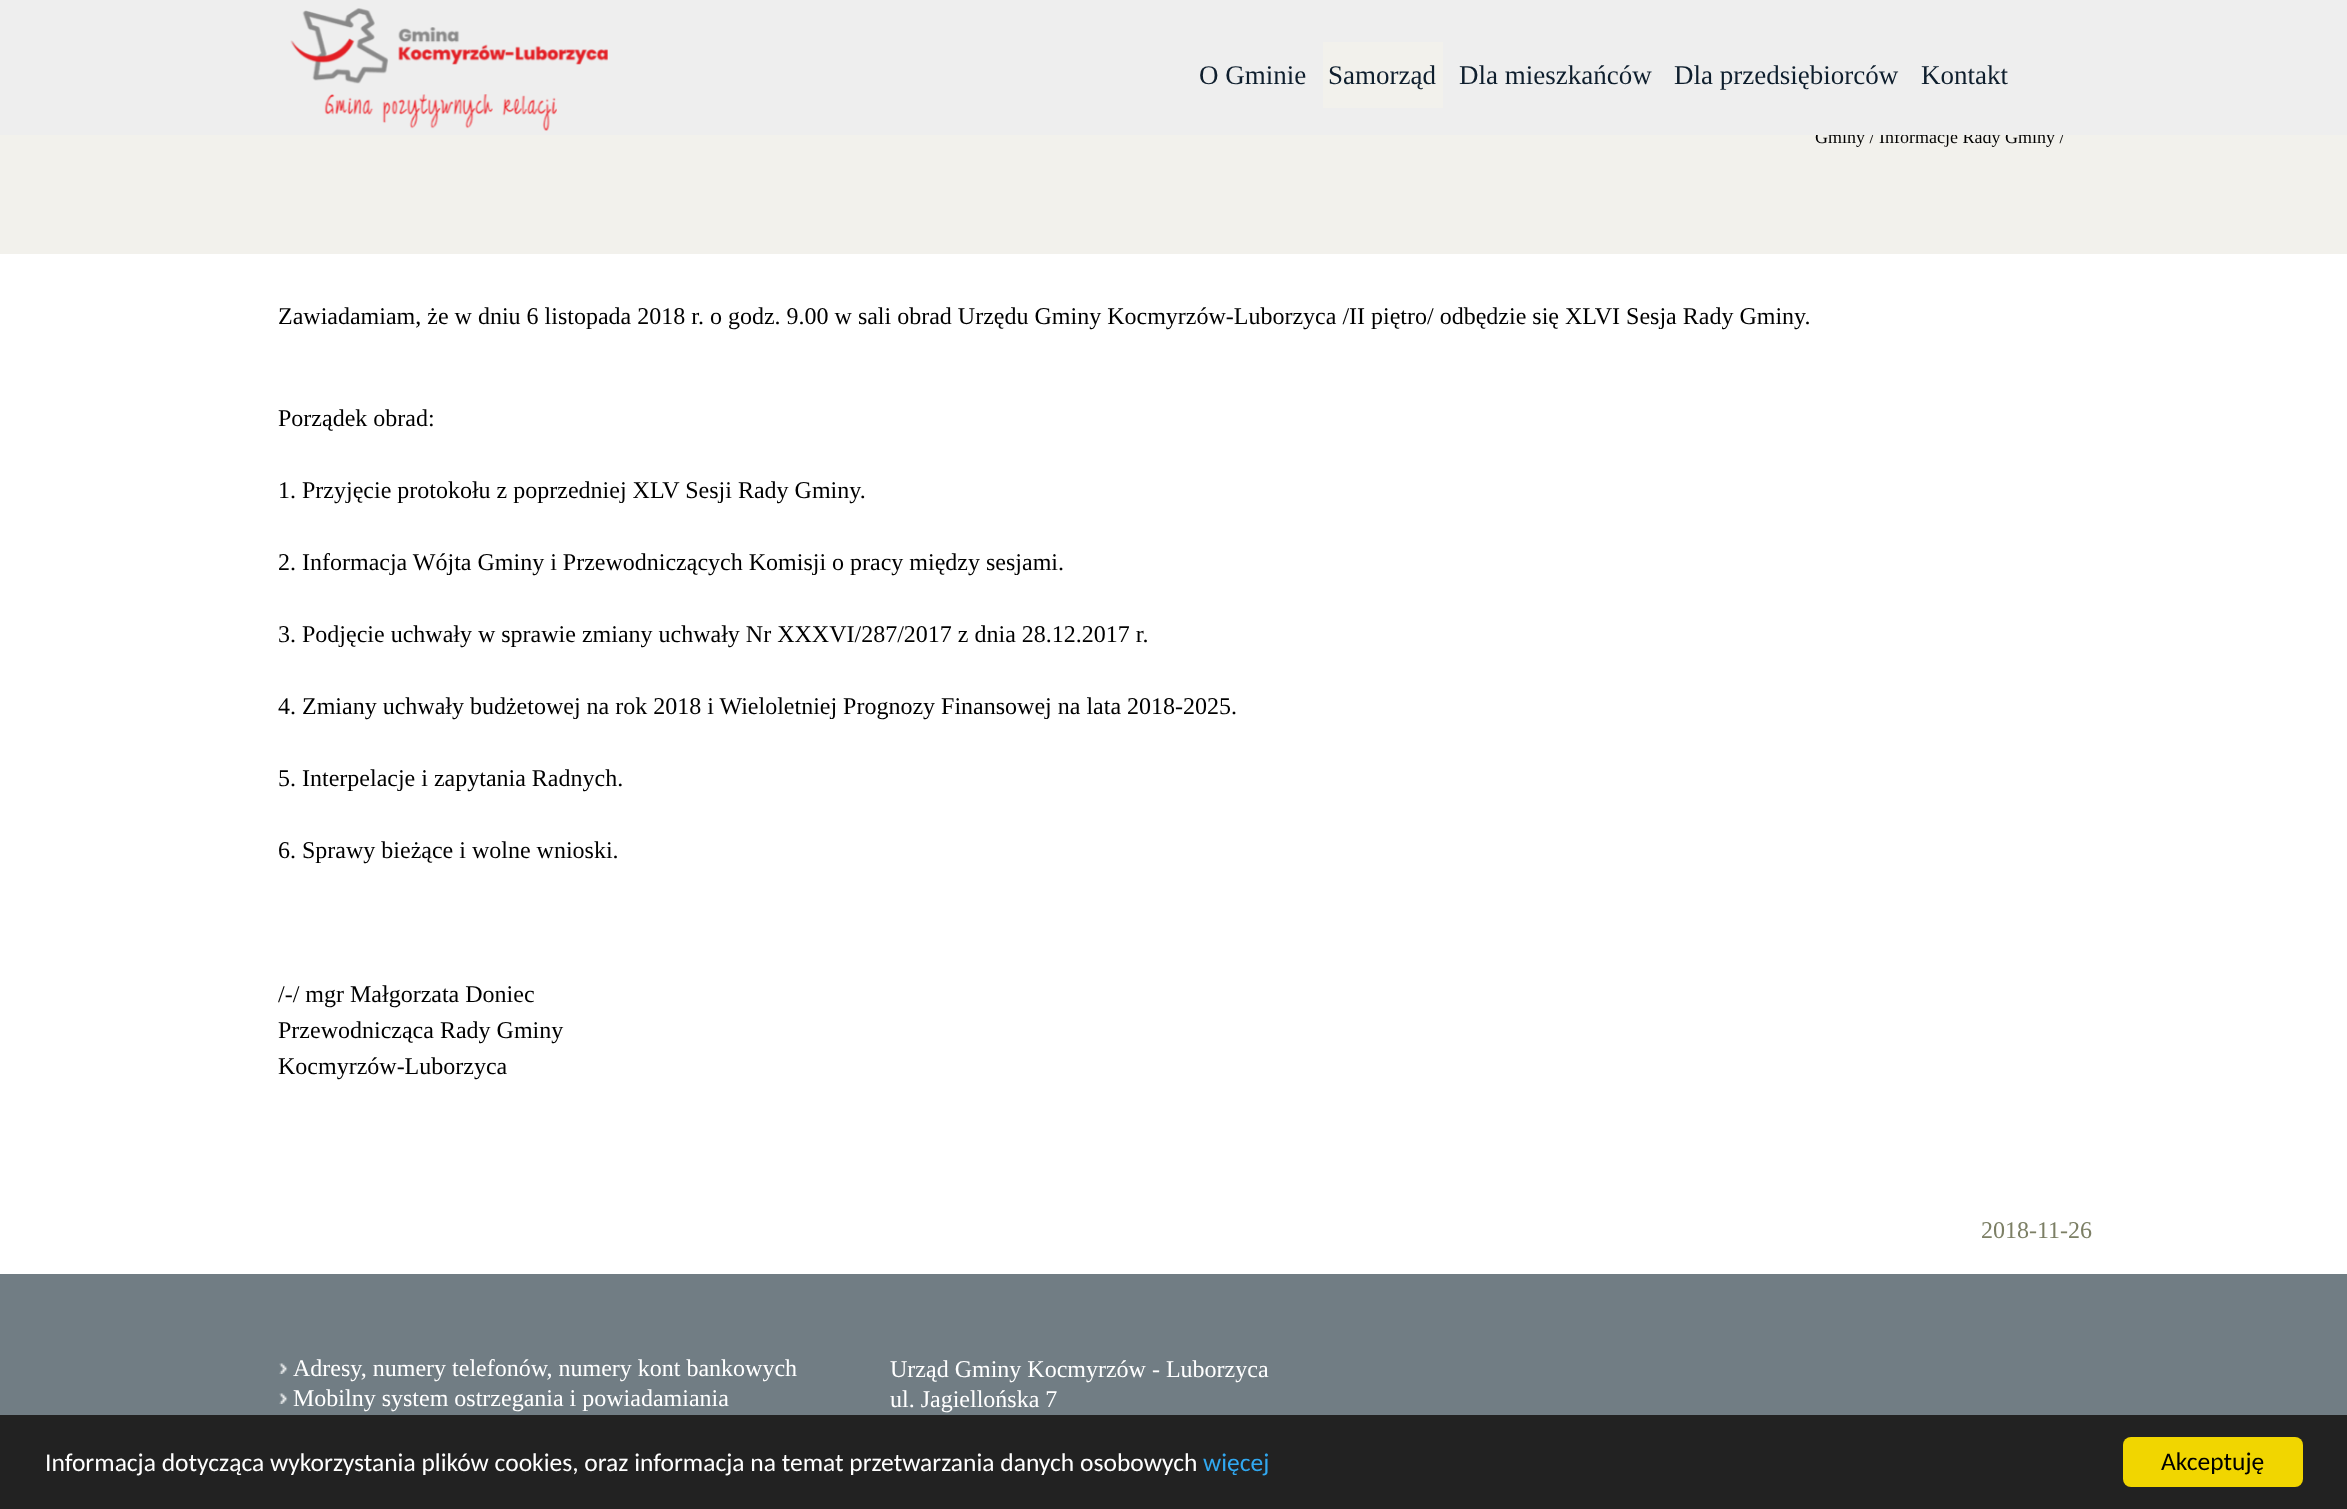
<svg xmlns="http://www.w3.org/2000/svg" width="2347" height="1509">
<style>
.a{font:18px Liberation Serif;fill:#000}
.b{font:27px Liberation Serif;fill:#0e1e2d}
.c{font:24px Liberation Serif;fill:#000}
.d{font:24px Liberation Serif;fill:#7c7f65}
.e{font:24px Liberation Serif;fill:#fff}
.f{font:25.5px Carlito;fill:#fff}
.g{font:25.5px Carlito;fill:#31a8f0}
.h{font:25.5px Carlito;fill:#000}
</style>
<rect width="100%" height="100%" fill="#fff"/>
<path fill="#f2f1ec" d="M0 135h2347v119H0z"/>
<path fill="#717d84" d="M0 1274h2347v141H0z"/>
<image href="3.png" x="279" y="1363" width="9" height="11"/>
<image href="3.png" x="279" y="1393" width="9" height="11"/>
<path fill="#222" d="M0 1415h2347v94H0z"/>
<rect fill="#f1d600" x="2123" y="1437" width="180" height="50" rx="8"/>
<text class="a" x="1815" y="143">Gminy / Informacje Rady Gminy /</text>
<path fill="#eee" d="M0 0h2347v135H0z"/>
<text class="b" x="1921" y="84">Kontakt</text>
<text class="b" x="1674" y="84">Dla przedsiębiorców</text>
<text class="b" x="1459" y="84">Dla mieszkańców</text>
<path fill="#f2f1ec" d="M1323 42h120v66H1323z"/>
<text class="b" x="1328" y="84">Samorząd</text>
<text class="b" x="1199" y="84">O Gminie</text>
<image href="2.png" x="324" y="94" width="233" height="37"/>
<image href="1.png" x="290" y="8" width="318" height="76"/>
<text class="c" x="278" y="324">Zawiadamiam, że w dniu 6 listopada 2018 r. o godz. 9.00 w sali obrad Urzędu Gminy Kocmyrzów-Luborzyca /II piętro/ odbędzie się XLVI Sesja Rady Gminy.</text>
<text class="c" x="278" y="426">Porządek obrad:</text>
<text class="c" x="278" y="498">1. Przyjęcie protokołu z poprzedniej XLV Sesji Rady Gminy.</text>
<text class="c" x="278" y="570">2. Informacja Wójta Gminy i Przewodniczących Komisji o pracy między sesjami.</text>
<text class="c" x="278" y="642">3. Podjęcie uchwały w sprawie zmiany uchwały Nr XXXVI/287/2017 z dnia 28.12.2017 r.</text>
<text class="c" x="278" y="714">4. Zmiany uchwały budżetowej na rok 2018 i Wieloletniej Prognozy Finansowej na lata 2018-2025.</text>
<text class="c" x="278" y="786">5. Interpelacje i zapytania Radnych.</text>
<text class="c" x="278" y="858">6. Sprawy bieżące i wolne wnioski.</text>
<text class="c" x="278" y="1002">/-/ mgr Małgorzata Doniec</text>
<text class="c" x="278" y="1038">Przewodnicząca Rady Gminy</text>
<text class="c" x="278" y="1074">Kocmyrzów-Luborzyca</text>
<text class="d" x="1981" y="1238">2018-11-26</text>
<text class="e" x="293" y="1376">Adresy, numery telefonów, numery kont bankowych</text>
<text class="e" x="293" y="1406">Mobilny system ostrzegania i powiadamiania</text>
<text class="e" x="890" y="1377">Urząd Gminy Kocmyrzów - Luborzyca</text>
<text class="e" x="890" y="1407">ul. Jagiellońska 7</text>
<text class="f" x="45" y="1471">Informacja dotycząca wykorzystania plików cookies, oraz informacja na temat przetwarzania danych osobowych</text>
<text class="g" x="1203" y="1471">więcej</text>
<text class="h" x="2161" y="1470">Akceptuję</text>
</svg>
